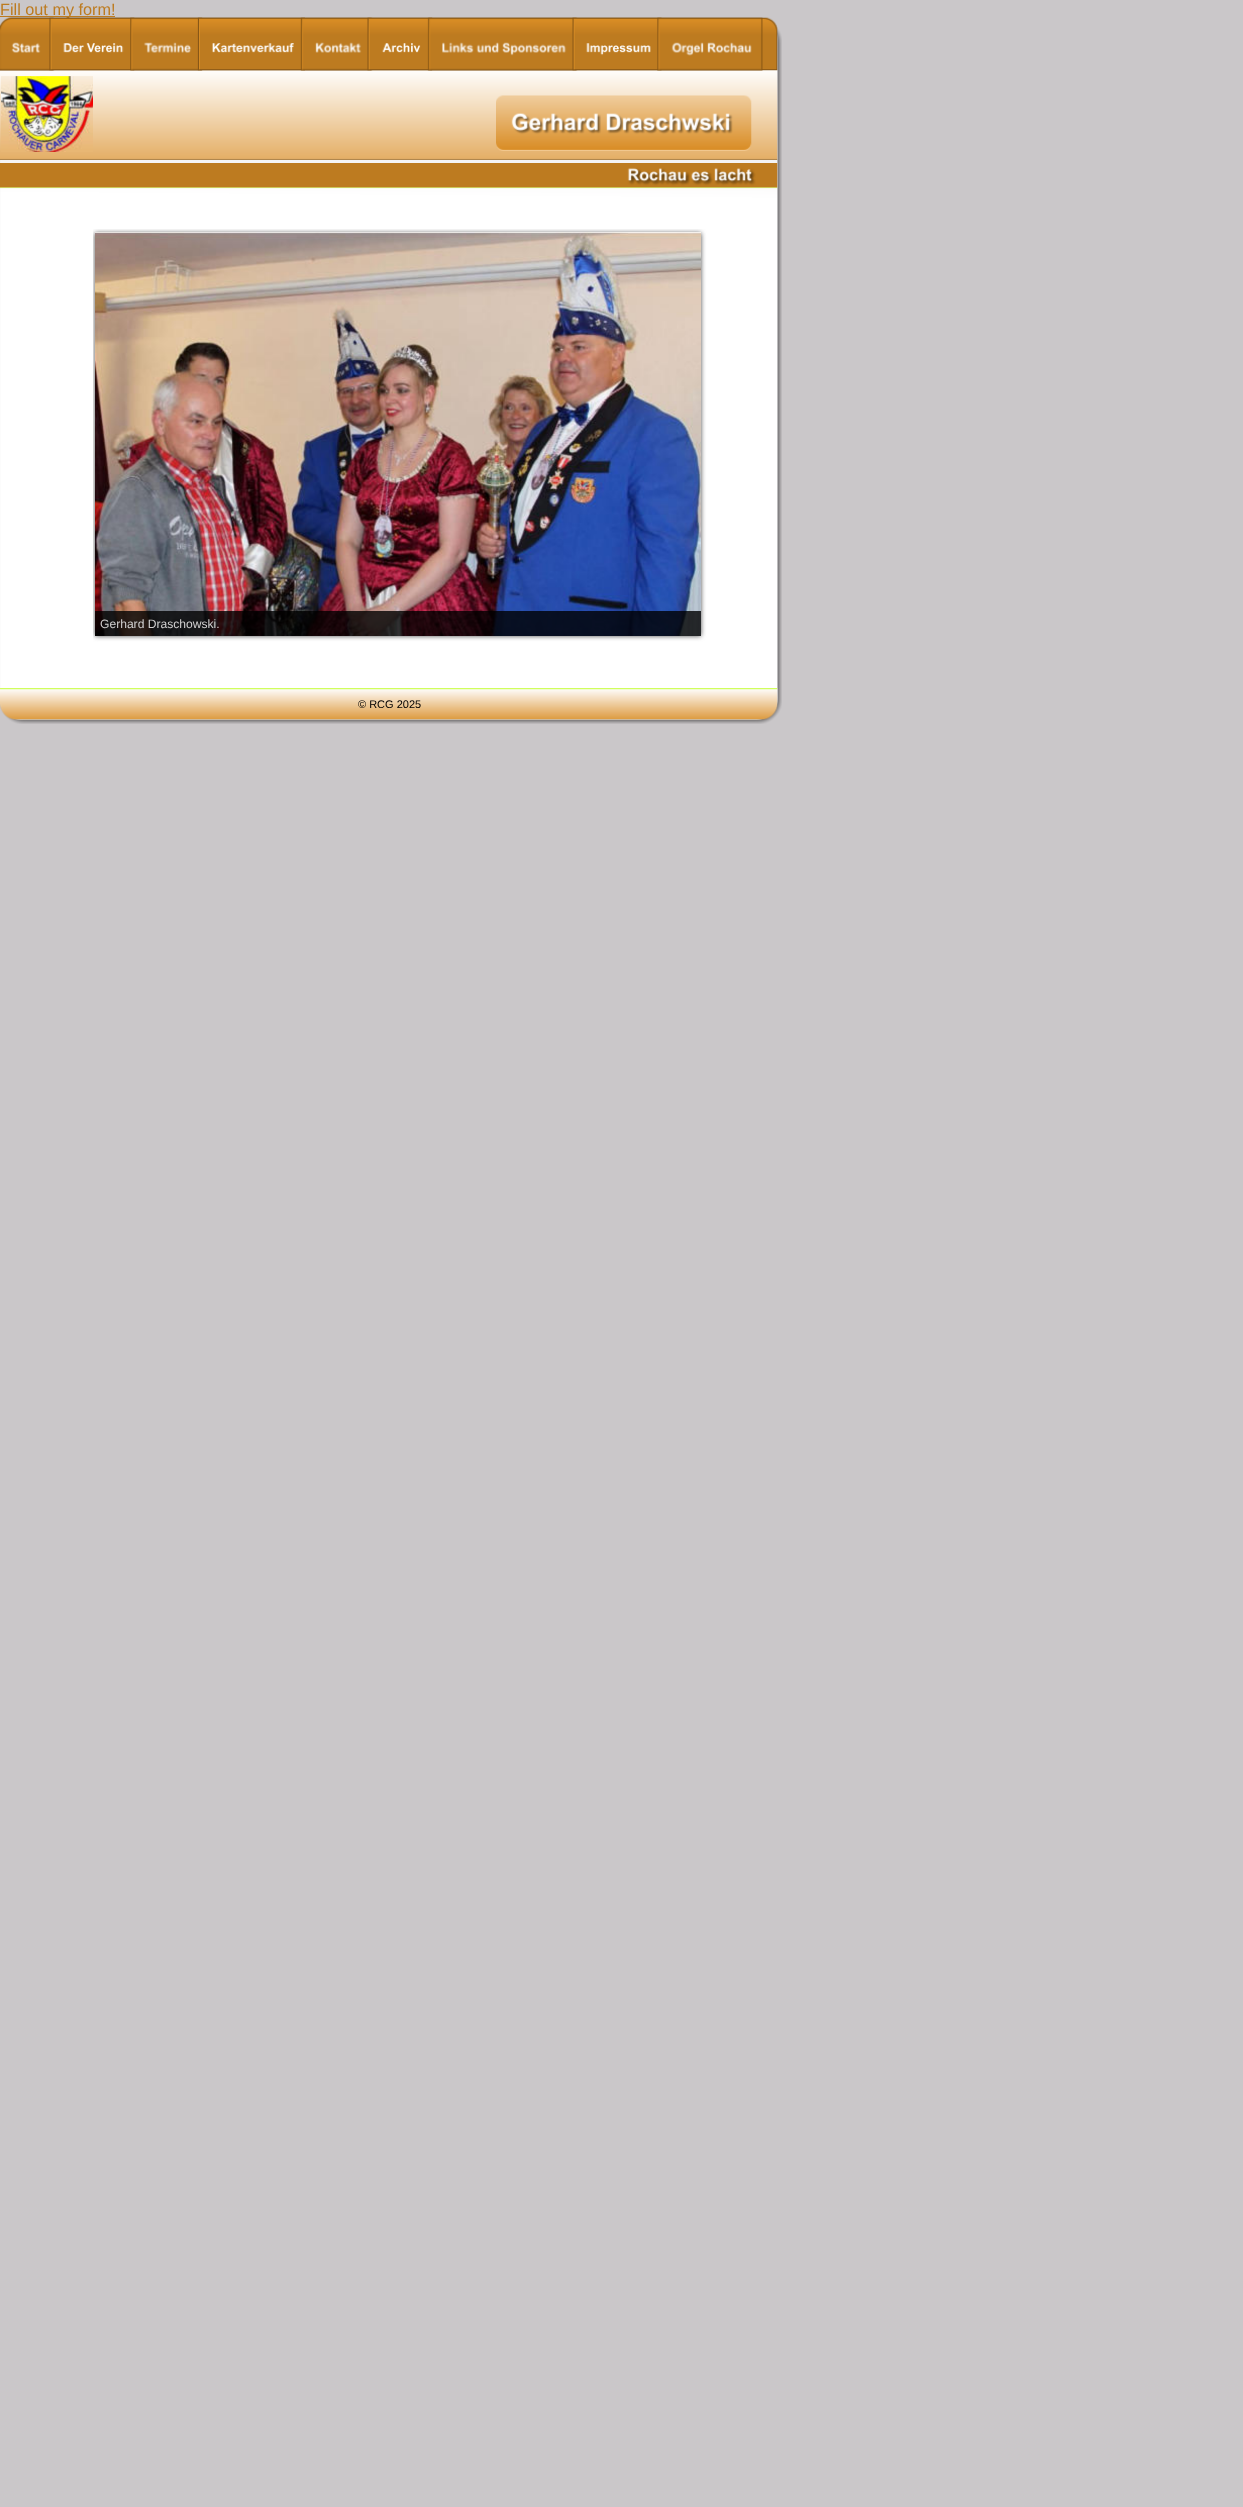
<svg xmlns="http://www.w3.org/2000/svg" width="1243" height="2507">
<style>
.a{font:16.25px Liberation Sans;fill:#bd7b20}
.b{font:12.1px Liberation Sans;fill:#d1d0d0}
.c{font:11px Liberation Sans;fill:#000}
</style>
<defs>
<clipPath id="clip1"><path d="M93 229h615v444H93z"/></clipPath>
</defs>
<rect width="100%" height="100%" fill="#cac7c9"/>
<path fill="#bd7b20" d="M0 16h115v1H0z"/>
<image href="1.png" x="0" y="23" width="782" height="701"/>
<image href="14.png" x="0" y="163" width="778" height="26"/>
<g clip-path="url(#clip1)">
<path fill="#4a4a4a" filter="blur(2.5px)" d="M95 233h606v403H95z"/>
</g>
<image href="15.png" x="95" y="232" width="606" height="404"/>
<path fill="#000000cc" d="M95 611h606v25H95z"/>
<image href="16.png" x="0" y="688" width="778" height="32"/>
<text class="a" x="0" y="15">Fill out my form!</text>
<image href="2.png" x="0" y="17" width="778" height="143"/>
<image href="3.png" x="0" y="17" width="55" height="54"/>
<image href="4.png" x="49" y="17" width="86" height="54"/>
<image href="5.png" x="130" y="17" width="73" height="54"/>
<image href="6.png" x="197" y="17" width="108" height="54"/>
<image href="7.png" x="300" y="17" width="73" height="54"/>
<image href="8.png" x="367" y="17" width="66" height="54"/>
<image href="9.png" x="427" y="17" width="151" height="54"/>
<image href="10.png" x="572" y="17" width="90" height="54"/>
<image href="11.png" x="657" y="17" width="106" height="54"/>
<image href="12.png" x="1" y="76" width="92" height="76"/>
<image href="13.png" x="496" y="95" width="256" height="56"/>
<text class="b" x="100" y="628">Gerhard Draschowski.</text>
<text class="c" x="358" y="708">© RCG 2025</text>
</svg>
